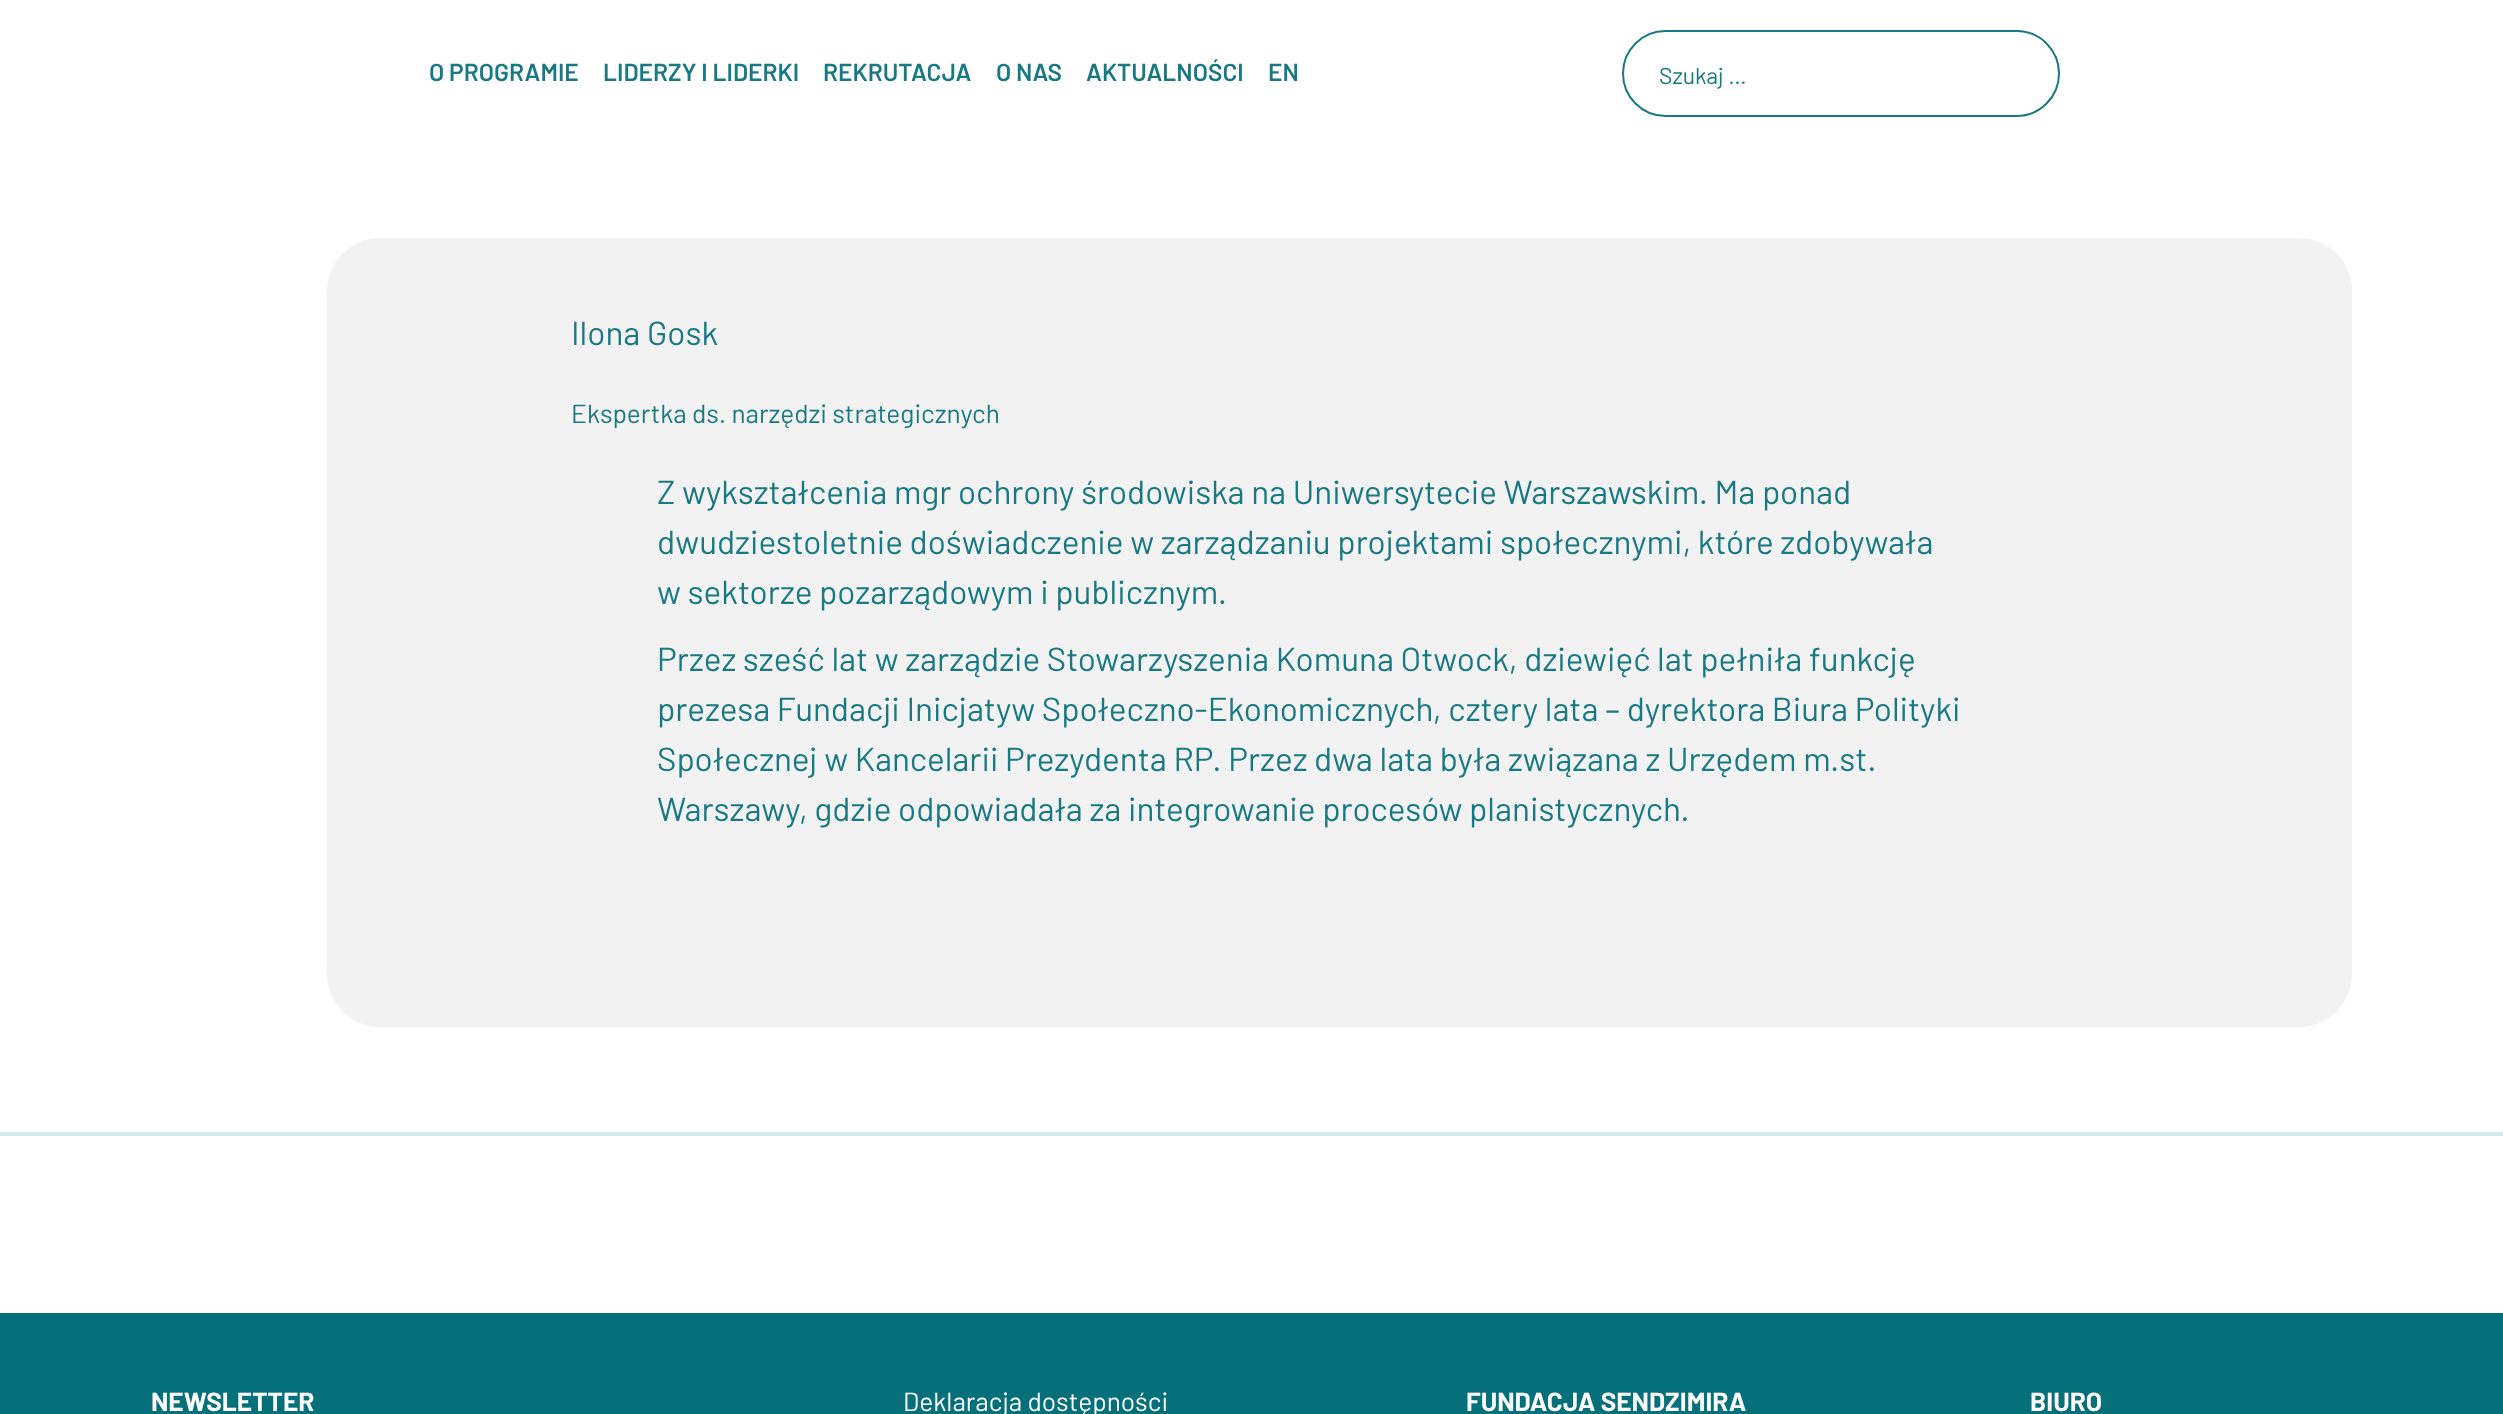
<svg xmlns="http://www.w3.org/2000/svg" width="2503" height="1414">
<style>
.a{font:600 24.5px Barlow;fill:#187983}
.b{font:23px Barlow;fill:#187983}
.c{font:33.25px Barlow;fill:#187983}
.d{font:26.25px Barlow;fill:#187983}
.e{font:bold 26.25px Barlow;fill:#fff}
.f{font:26.25px Barlow;fill:#fff}
</style>
<rect width="100%" height="100%" fill="#fff"/>
<rect fill="none" stroke="#187983" stroke-width="2" x="1623" y="31" width="436" height="85" rx="42.5"/>
<rect fill="#f2f2f2" x="327" y="238" width="2025" height="789" rx="53"/>
<path fill="#d7e8e9" d="M0 1132h2503v4H0z"/>
<path fill="#06707a" d="M0 1313h2503v101H0z"/>
<text class="a" x="429" y="81">O PROGRAMIE</text>
<text class="a" x="603" y="81">LIDERZY I LIDERKI</text>
<text class="a" x="823" y="81">REKRUTACJA</text>
<text class="a" x="996" y="81">O NAS</text>
<text class="a" x="1086" y="81">AKTUALNOŚCI</text>
<text class="a" x="1268" y="81">EN</text>
<text class="b" x="1659" y="84">Szukaj …</text>
<text class="c" x="571" y="345">Ilona Gosk</text>
<text class="d" x="571" y="423">Ekspertka ds. narzędzi strategicznych</text>
<text class="c" x="657" y="504">Z wykształcenia mgr ochrony środowiska na Uniwersytecie Warszawskim. Ma ponad</text>
<text class="c" x="657" y="554">dwudziestoletnie doświadczenie w zarządzaniu projektami społecznymi, które zdobywała</text>
<text class="c" x="657" y="604">w sektorze pozarządowym i publicznym.</text>
<text class="c" x="657" y="671">Przez sześć lat w zarządzie Stowarzyszenia Komuna Otwock, dziewięć lat pełniła funkcję</text>
<text class="c" x="657" y="721">prezesa Fundacji Inicjatyw Społeczno-Ekonomicznych, cztery lata – dyrektora Biura Polityki</text>
<text class="c" x="657" y="771">Społecznej w Kancelarii Prezydenta RP. Przez dwa lata była związana z Urzędem m.st.</text>
<text class="c" x="657" y="821">Warszawy, gdzie odpowiadała za integrowanie procesów planistycznych.</text>
<text class="e" x="151" y="1411">NEWSLETTER</text>
<text class="f" x="903" y="1411">Deklaracja dostępności</text>
<text class="e" x="1466" y="1411">FUNDACJA SENDZIMIRA</text>
<text class="e" x="2030" y="1411">BIURO</text>
</svg>
